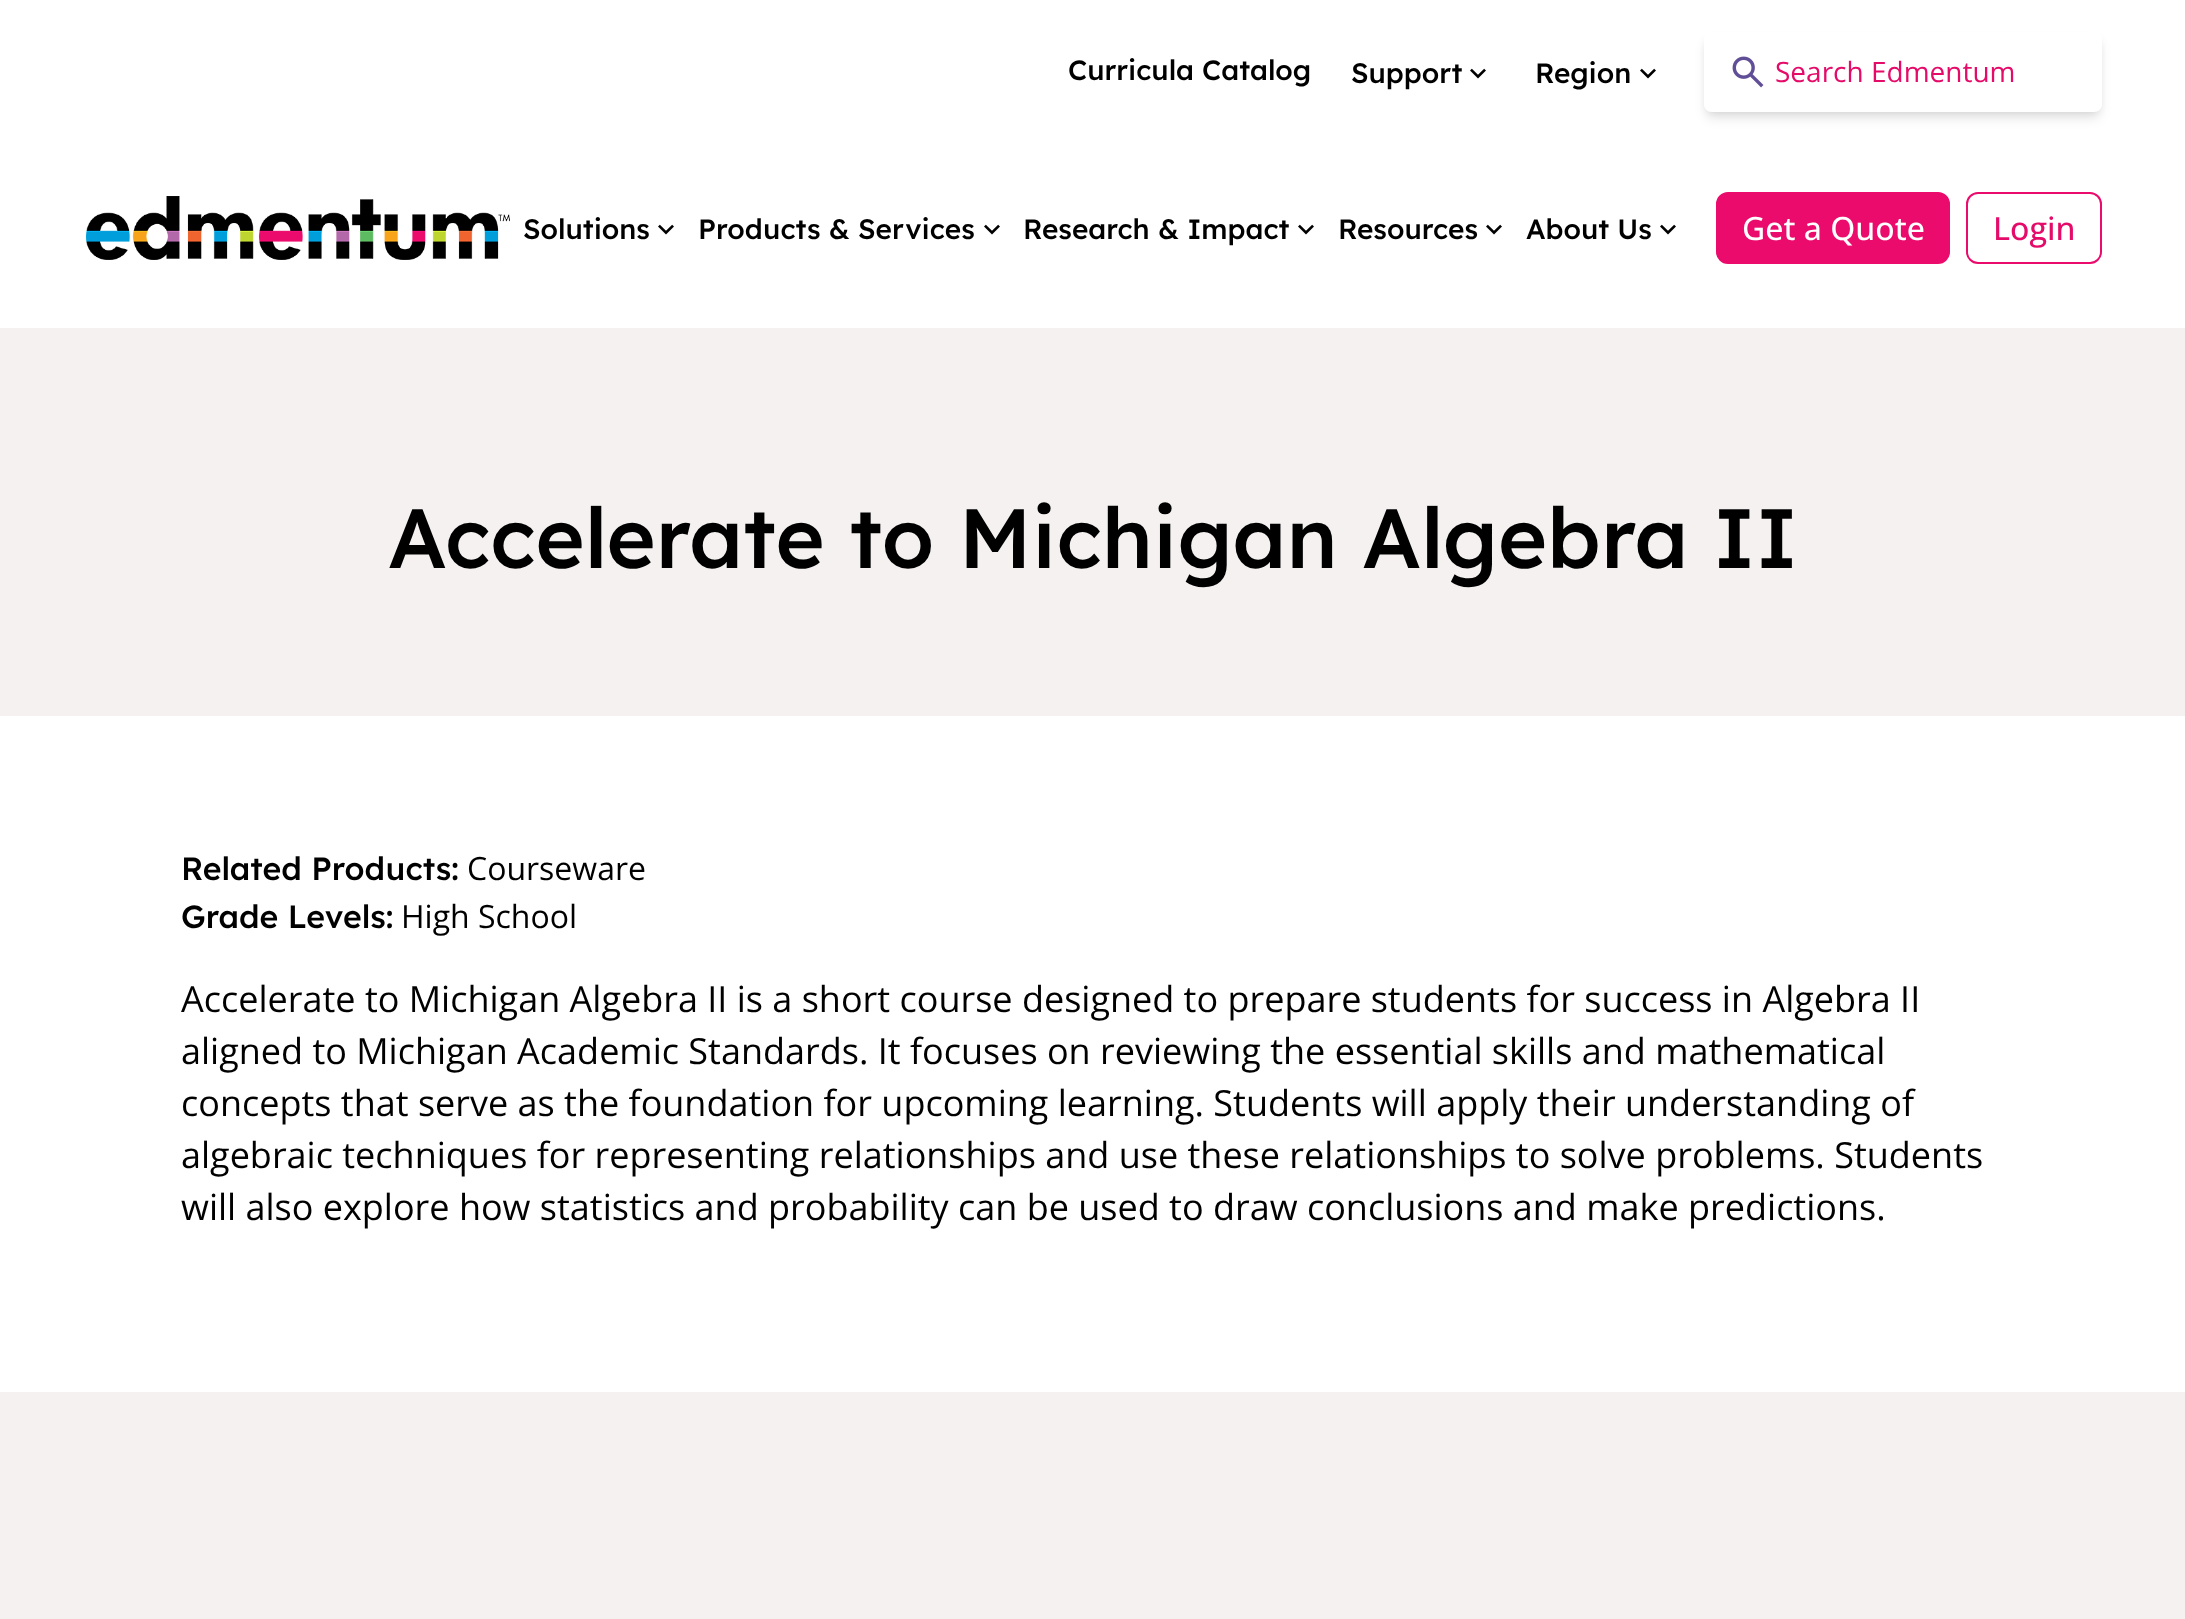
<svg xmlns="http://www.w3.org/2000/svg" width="2185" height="1619">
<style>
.a{font:500 28px Lexend;fill:#000}
.b{font:28px Open Sans;fill:#e40b69}
.c{font:500 32px Open Sans;fill:#fff}
.d{font:500 32px Open Sans;fill:#e40b69}
.e{font:500 84px Lexend;fill:#000}
.f{font:500 32px Lexend;fill:#000}
.g{font:32px Open Sans;fill:#000}
.h{font:36px Open Sans;fill:#000}
</style>
<defs>
<clipPath id="clip1"><path d="M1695 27h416v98h-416zm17 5h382c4.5 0 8 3.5 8 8v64c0 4.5-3.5 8-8 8h-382c-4.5 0-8-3.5-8-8v-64c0-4.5 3.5-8 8-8z" clip-rule="evenodd"/></clipPath>
<clipPath id="clip2"><path d="M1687 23h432v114h-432zm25 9h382c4.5 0 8 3.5 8 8v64c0 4.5-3.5 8-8 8h-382c-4.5 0-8-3.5-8-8v-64c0-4.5 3.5-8 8-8z" clip-rule="evenodd"/></clipPath>
</defs>
<rect width="100%" height="100%" fill="#fff"/>
<image href="1.png" x="1470" y="68" width="16" height="11"/>
<image href="1.png" x="1640" y="68" width="16" height="11"/>
<g clip-path="url(#clip1)">
<rect fill="#0000001a" filter="blur(4px)" x="1708" y="40" width="390" height="72" rx="4"/>
</g>
<g clip-path="url(#clip2)">
<rect fill="#0000001a" filter="blur(6px)" x="1706" y="42" width="394" height="76" rx="6"/>
</g>
<image href="2.png" x="1732" y="56" width="32" height="32"/>
<image href="3.png" x="86" y="196" width="424" height="64"/>
<image href="1.png" x="658" y="224" width="16" height="11"/>
<image href="1.png" x="984" y="224" width="16" height="11"/>
<image href="1.png" x="1298" y="224" width="16" height="11"/>
<image href="1.png" x="1486" y="224" width="16" height="11"/>
<image href="1.png" x="1660" y="224" width="16" height="11"/>
<rect fill="#eb0b6c" stroke="#eb0b6c" stroke-width="2" x="1717" y="193" width="232" height="70" rx="11"/>
<rect fill="none" stroke="#eb0b6c" stroke-width="2" x="1967" y="193" width="134" height="70" rx="11"/>
<path fill="#f4f1f0" d="M0 328h2185v388H0z"/>
<path fill="#f4f1f0" d="M0 1392h2185v227H0z"/>
<text class="a" x="1068" y="80">Curricula Catalog</text>
<text class="a" x="1351" y="83">Support</text>
<text class="a" x="1535" y="83">Region</text>
<text class="b" x="1775" y="82">Search Edmentum</text>
<text class="a" x="523" y="239">Solutions</text>
<text class="a" x="698" y="239">Products &amp; Services</text>
<text class="a" x="1023" y="239">Research &amp; Impact</text>
<text class="a" x="1338" y="239">Resources</text>
<text class="a" x="1526" y="239">About Us</text>
<text class="c" x="1742" y="240">Get a Quote</text>
<text class="d" x="1993" y="240">Login</text>
<text class="e" x="388" y="568">Accelerate to Michigan Algebra II</text>
<text class="f" x="181" y="880">Related Products:</text>
<text class="g" x="467" y="880">Courseware</text>
<text class="f" x="181" y="928">Grade Levels:</text>
<text class="g" x="401" y="928">High School</text>
<text class="h" x="181" y="1012">Accelerate to Michigan Algebra II is a short course designed to prepare students for success in Algebra II</text>
<text class="h" x="181" y="1064">aligned to Michigan Academic Standards. It focuses on reviewing the essential skills and mathematical</text>
<text class="h" x="181" y="1116">concepts that serve as the foundation for upcoming learning. Students will apply their understanding of</text>
<text class="h" x="181" y="1168">algebraic techniques for representing relationships and use these relationships to solve problems. Students</text>
<text class="h" x="181" y="1220">will also explore how statistics and probability can be used to draw conclusions and make predictions.</text>
</svg>
